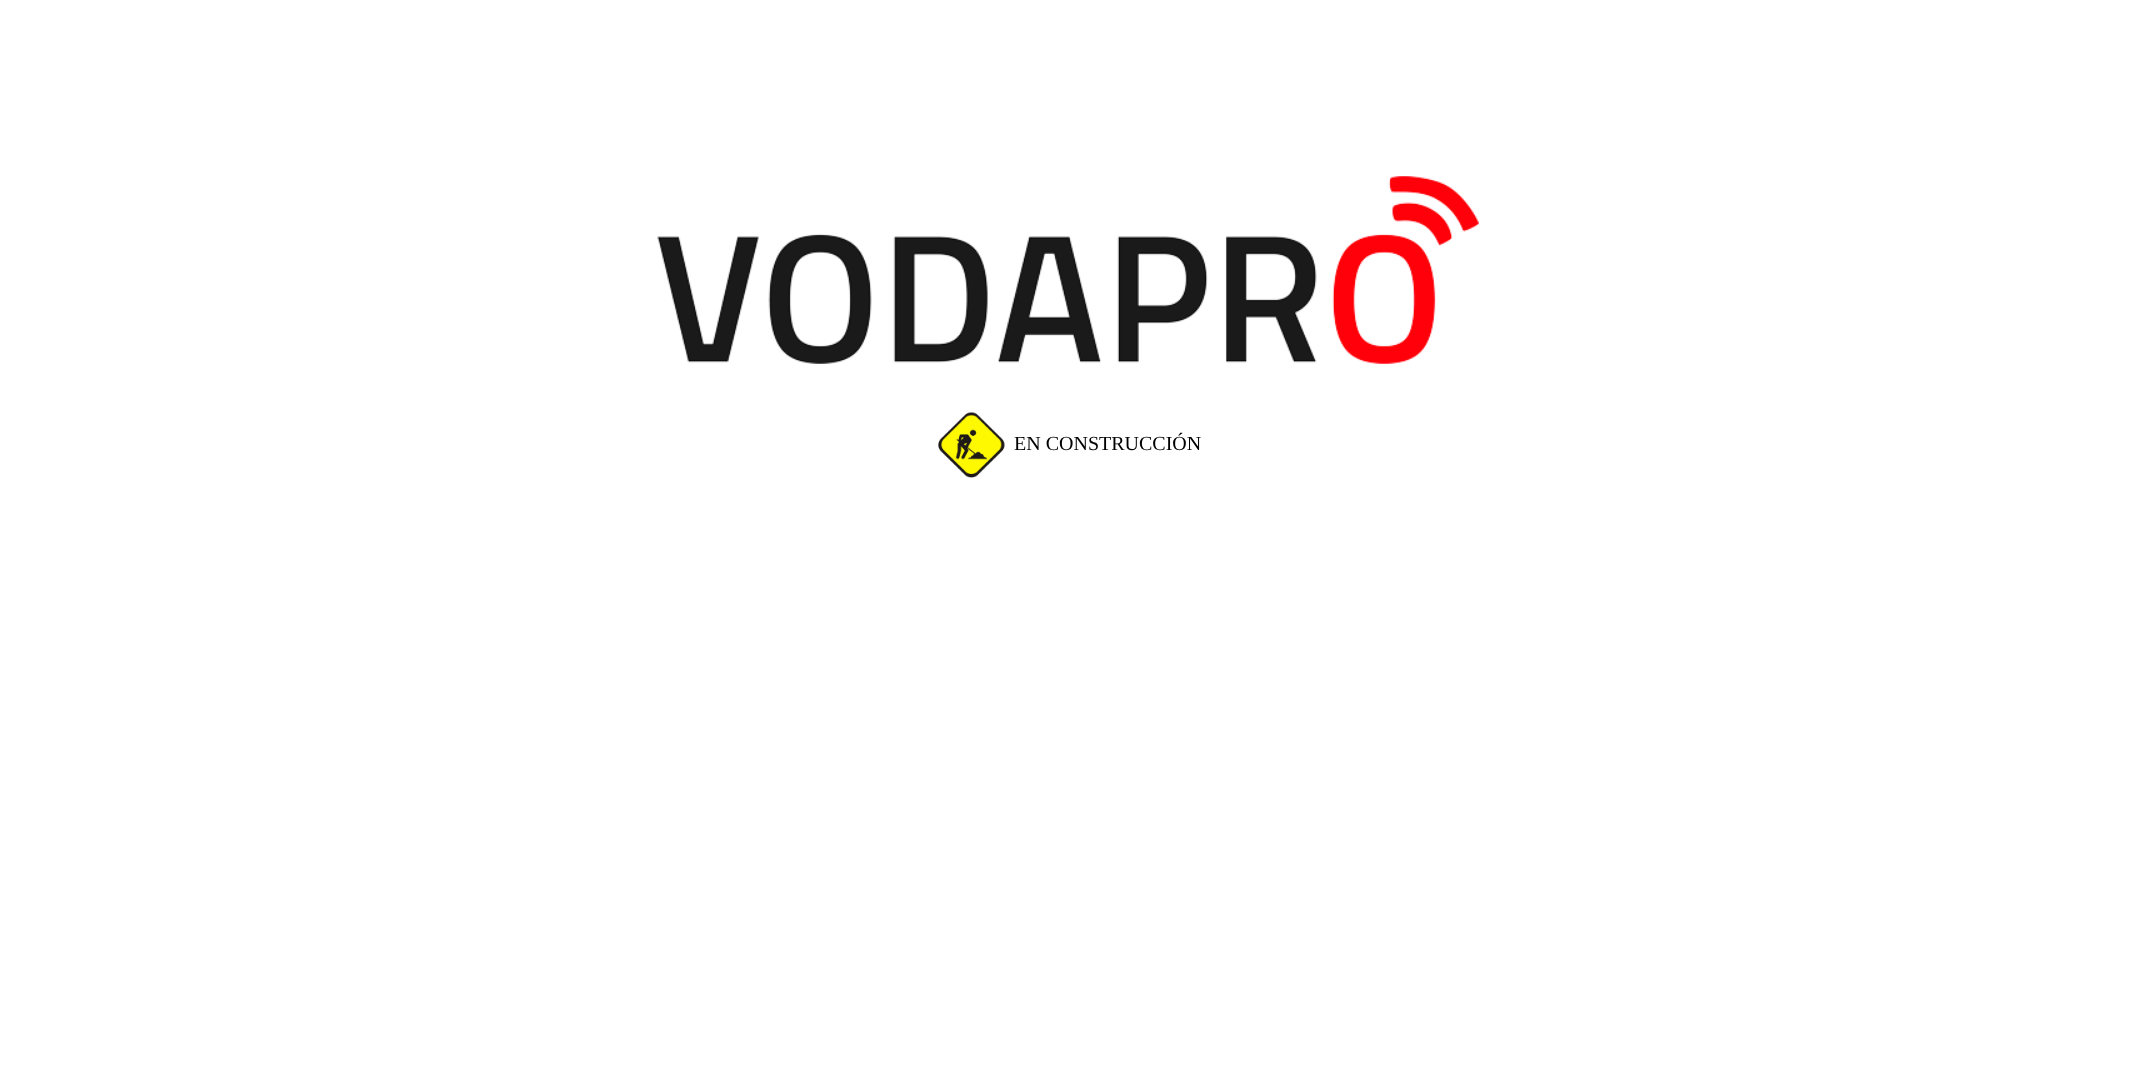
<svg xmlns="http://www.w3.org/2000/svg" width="2136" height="1087">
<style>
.a{font:20px Liberation Serif;fill:#000}
</style>
<rect width="100%" height="100%" fill="#fff"/>
<image href="1.png" x="657" y="176" width="822" height="188"/>
<image href="2.png" x="938" y="412" width="67" height="66"/>
<text class="a" x="1014" y="450">EN CONSTRUCCIÓN</text>
</svg>
